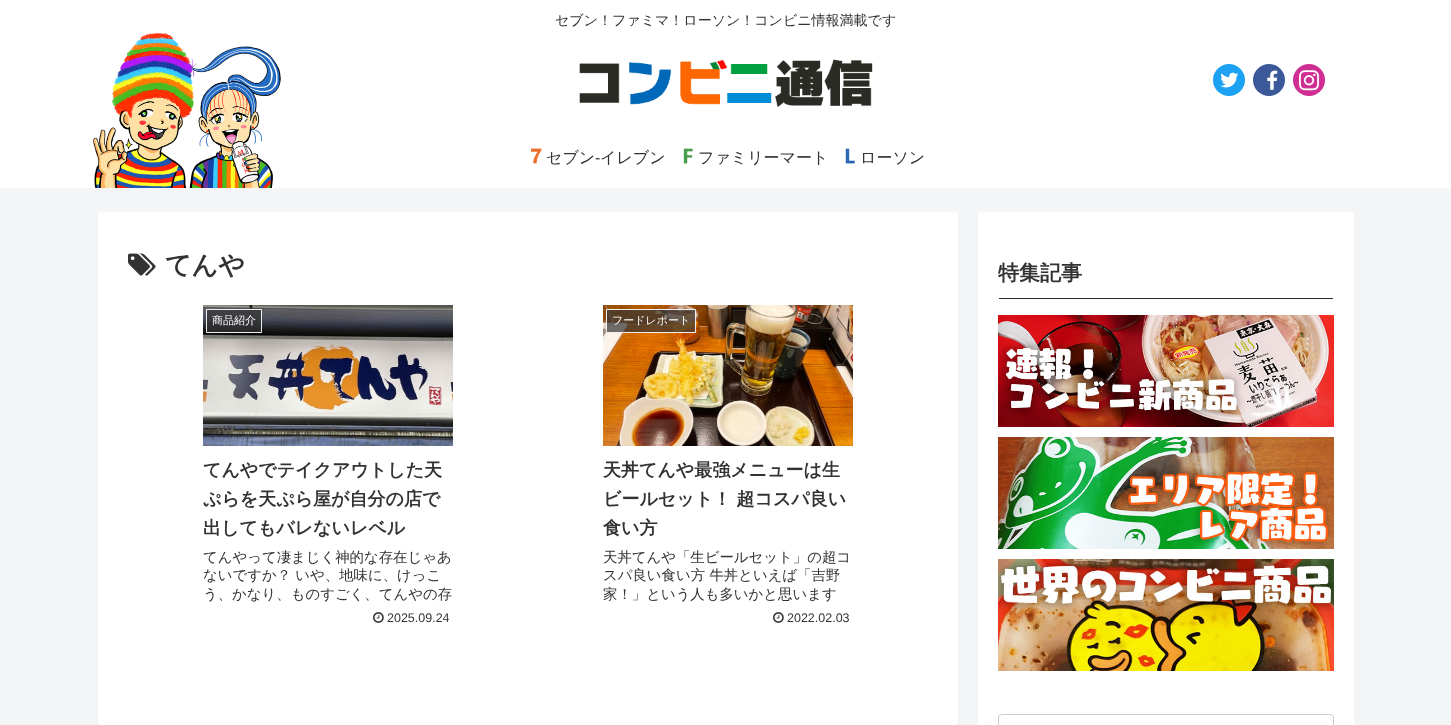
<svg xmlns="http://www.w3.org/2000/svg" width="1451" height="725">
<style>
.a{font:500 14px WenQuanYi Zen Hei;fill:#333}
.b{font:500 16px WenQuanYi Zen Hei;fill:#333}
.c{font:16px Liberation Sans;fill:#333}
.d{font:bold 26px WenQuanYi Zen Hei;fill:#333}
.e{font:500 11px WenQuanYi Zen Hei;fill:#fff}
.f{font:bold 18px WenQuanYi Zen Hei;fill:#333}
.g{font:500 14.4px WenQuanYi Zen Hei;fill:#333}
.h{font:12.5px Liberation Sans;fill:#333}
.i{font:bold 21px WenQuanYi Zen Hei;fill:#333}
</style>
<rect width="100%" height="100%" fill="#f4f5f7"/>
<path fill="#fff" d="M0 0h1451v188H0z"/>
<image href="1.png" x="93" y="32" width="188" height="156"/>
<image href="2.png" x="579" y="59" width="294" height="48"/>
<circle fill="#1da1f2" cx="1229" cy="80" r="16"/>
<image href="3.png" x="1220" y="72" width="19" height="16"/>
<circle fill="#3b5998" cx="1269" cy="80" r="16"/>
<image href="4.png" x="1267" y="70" width="11" height="20"/>
<circle fill="#cf2e92" cx="1309" cy="80" r="16"/>
<image href="5.png" x="1299" y="70" width="20" height="21"/>
<image href="6.png" x="531" y="148" width="11" height="16"/>
<image href="7.png" x="683" y="148" width="10" height="16"/>
<image href="8.png" x="845" y="148" width="10" height="16"/>
<rect fill="#fff" x="98" y="212" width="860" height="513" rx="4"/>
<image href="9.png" x="128" y="253" width="28" height="23"/>
<image href="10.png" x="203" y="305" width="250" height="141"/>
<path fill="#333333b3" stroke="#eee" d="M206.5 309.5h55v23H206.5z"/>
<image href="11.png" x="373" y="612" width="11" height="11"/>
<image href="12.png" x="603" y="305" width="250" height="141"/>
<path fill="#333333b3" stroke="#eee" d="M606.5 309.5h89v23H606.5z"/>
<image href="11.png" x="773" y="612" width="11" height="11"/>
<rect fill="#fff" x="978" y="212" width="376" height="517" rx="4"/>
<path fill="#282828" d="M999 298h334v1H999z"/>
<image href="13.png" x="998" y="315" width="336" height="112"/>
<image href="14.png" x="998" y="437" width="336" height="112"/>
<image href="15.png" x="998" y="559" width="336" height="112"/>
<rect fill="none" stroke="#ccc" x="998.5" y="714.5" width="335" height="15" rx="3.5"/>
<text class="a" x="555" y="25">セブン！ファミマ！ローソン！コンビニ情報満載です</text>
<text class="b" x="546" y="163">セブン</text>
<text class="c" x="595" y="163">-</text>
<text class="b" x="600" y="163">イレブン</text>
<text class="b" x="698" y="163">ファミリーマート</text>
<text class="b" x="860" y="163">ローソン</text>
<text class="d" x="165" y="274">てんや</text>
<text class="e" x="212" y="324">商品紹介</text>
<text class="f" x="203" y="476">てんやでテイクアウトした天</text>
<text class="f" x="203" y="505">ぷらを天ぷら屋が自分の店で</text>
<text class="f" x="203" y="534">出してもバレないレベル</text>
<text class="g" x="203" y="562">てんやって凄まじく神的な存在じゃあ</text>
<text class="g" x="203" y="580">ないですか？ いや、地味に、けっこ</text>
<text class="g" x="203" y="599">う、かなり、ものすごく、てんやの存</text>
<text class="h" x="387" y="622">2025.09.24</text>
<text class="e" x="612" y="324">フードレポート</text>
<text class="f" x="603" y="476">天丼てんや最強メニューは生</text>
<text class="f" x="603" y="505">ビールセット！ 超コスパ良い</text>
<text class="f" x="603" y="534">食い方</text>
<text class="g" x="603" y="562">天丼てんや「生ビールセット」の超コ</text>
<text class="g" x="603" y="580">スパ良い食い方 牛丼といえば「吉野</text>
<text class="g" x="603" y="599">家！」という人も多いかと思います</text>
<text class="h" x="787" y="622">2022.02.03</text>
<text class="i" x="998" y="280">特集記事</text>
</svg>
